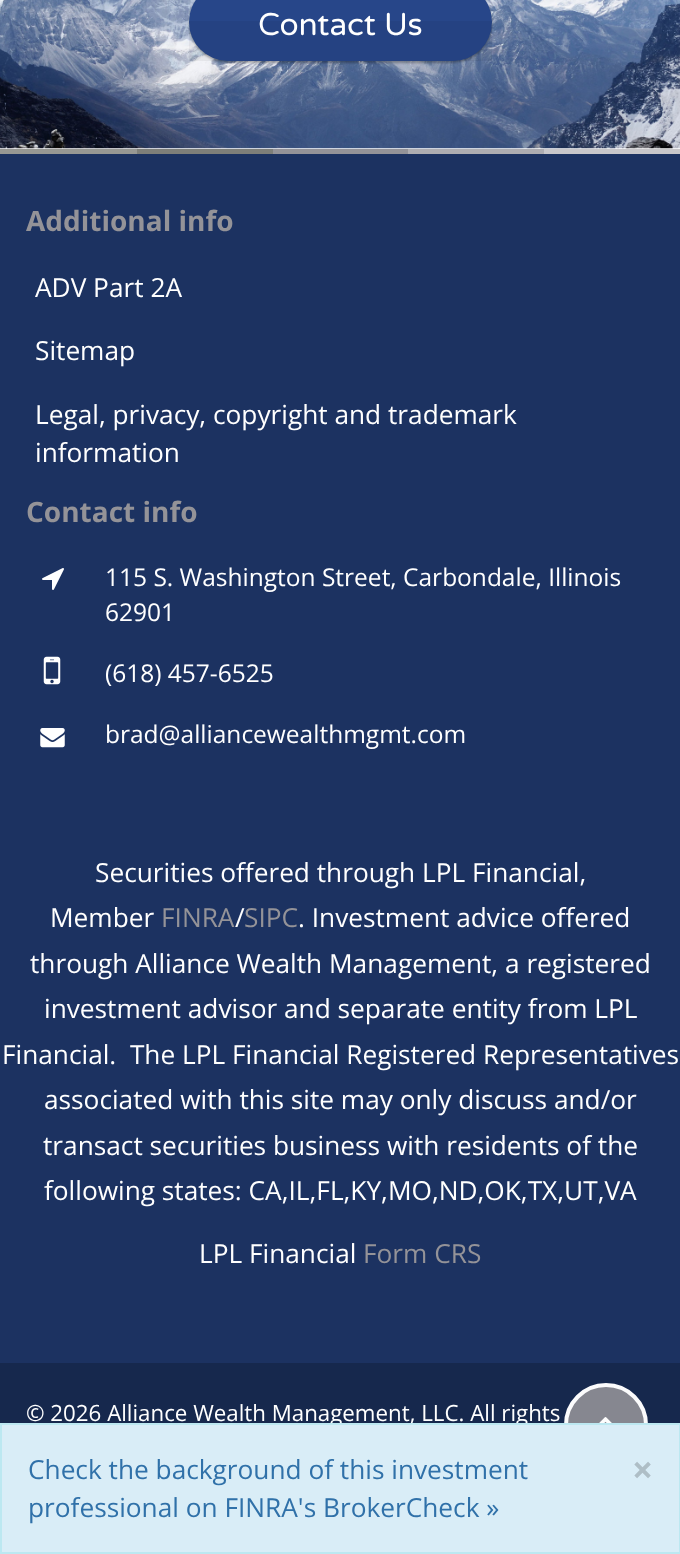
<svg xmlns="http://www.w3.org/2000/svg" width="680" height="1554">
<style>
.a{font:31.5px Varela Round;fill:#fff}
.b{font:bold 28px Open Sans;fill:#949398}
.c{font:26.25px Open Sans;fill:#fff}
.d{font:24.5px Open Sans;fill:#fff}
.e{font:26.25px Open Sans;fill:#949398}
.f{font:22.3px Open Sans;fill:#fff}
.g{font:26.25px Open Sans;fill:#3071a9}
.h{font:bold 37px Open Sans;fill:#aebec6}
</style>
<rect width="100%" height="100%" fill="#fff"/>
<image href="1.png" x="0" y="0" width="680" height="149"/>
<rect fill="#0000004d" filter="blur(1px)" x="189" y="-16" width="303" height="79" rx="39.5"/>
<rect fill="#274689" x="189" y="-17" width="303" height="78" rx="39"/>
<path fill="#0000000d" d="M189 21h303v40H189z"/>
<path fill="#1c3261" d="M0 154h680v1209H0z"/>
<path fill="#979893" d="M0 149h137v5H0z"/>
<path fill="#7e7f79" d="M137 149h136v5H137z"/>
<path fill="#949398" d="M273 149h135v5H273z"/>
<path fill="#aeadb1" d="M408 149h136v5H408z"/>
<path fill="#c8c7ca" d="M544 149h136v5H544z"/>
<image href="2.png" x="42" y="568" width="22" height="22"/>
<image href="3.png" x="43" y="656" width="18" height="29"/>
<image href="4.png" x="40" y="728" width="25" height="20"/>
<path fill="#16284d" d="M0 1363h680v60H0z"/>
<circle fill="#868790" stroke="#fbfbfc" stroke-width="4" cx="606" cy="1425" r="40"/>
<image href="5.png" x="599" y="1417" width="13" height="6"/>
<text class="a" x="258" y="35">Contact Us</text>
<text class="b" x="26" y="231">Additional info</text>
<text class="c" x="35" y="297">ADV Part 2A</text>
<text class="c" x="35" y="360">Sitemap</text>
<text class="c" x="35" y="424">Legal, privacy, copyright and trademark</text>
<text class="c" x="35" y="462">information</text>
<text class="b" x="26" y="522">Contact info</text>
<text class="d" x="105" y="586">115 S. Washington Street, Carbondale, Illinois</text>
<text class="d" x="105" y="621">62901</text>
<text class="d" x="105" y="682">(618) 457-6525</text>
<text class="d" x="105" y="743">brad@alliancewealthmgmt.com</text>
<text class="c" x="95" y="882">Securities offered through LPL Financial,</text>
<text class="c" x="50" y="927">Member</text>
<text class="e" x="161" y="927">FINRA</text>
<text class="c" x="235" y="927">/</text>
<text class="e" x="244" y="927">SIPC</text>
<text class="c" x="298" y="927">. Investment advice offered</text>
<text class="c" x="30" y="973">through Alliance Wealth Management, a registered</text>
<text class="c" x="44" y="1018">investment advisor and separate entity from LPL</text>
<text class="c" xml:space="preserve" x="2" y="1064">Financial.  The LPL Financial Registered Representatives</text>
<text class="c" x="44" y="1109">associated with this site may only discuss and/or</text>
<text class="c" x="43" y="1155">transact securities business with residents of the</text>
<text class="c" x="44" y="1200">following states: CA,IL,FL,KY,MO,ND,OK,TX,UT,VA</text>
<text class="c" x="199" y="1263">LPL Financial</text>
<text class="e" x="363" y="1263">Form CRS</text>
<text class="f" x="26" y="1421">© 2026 Alliance Wealth Management, LLC. All rights</text>
<path fill="#d9edf7" stroke="#bce8f1" stroke-width="2" d="M1 1424h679v129H1z"/>
<text class="g" x="28" y="1479">Check the background of this investment</text>
<text class="h" x="632" y="1483">×</text>
<text class="g" x="28" y="1517">professional on FINRA's BrokerCheck »</text>
</svg>
